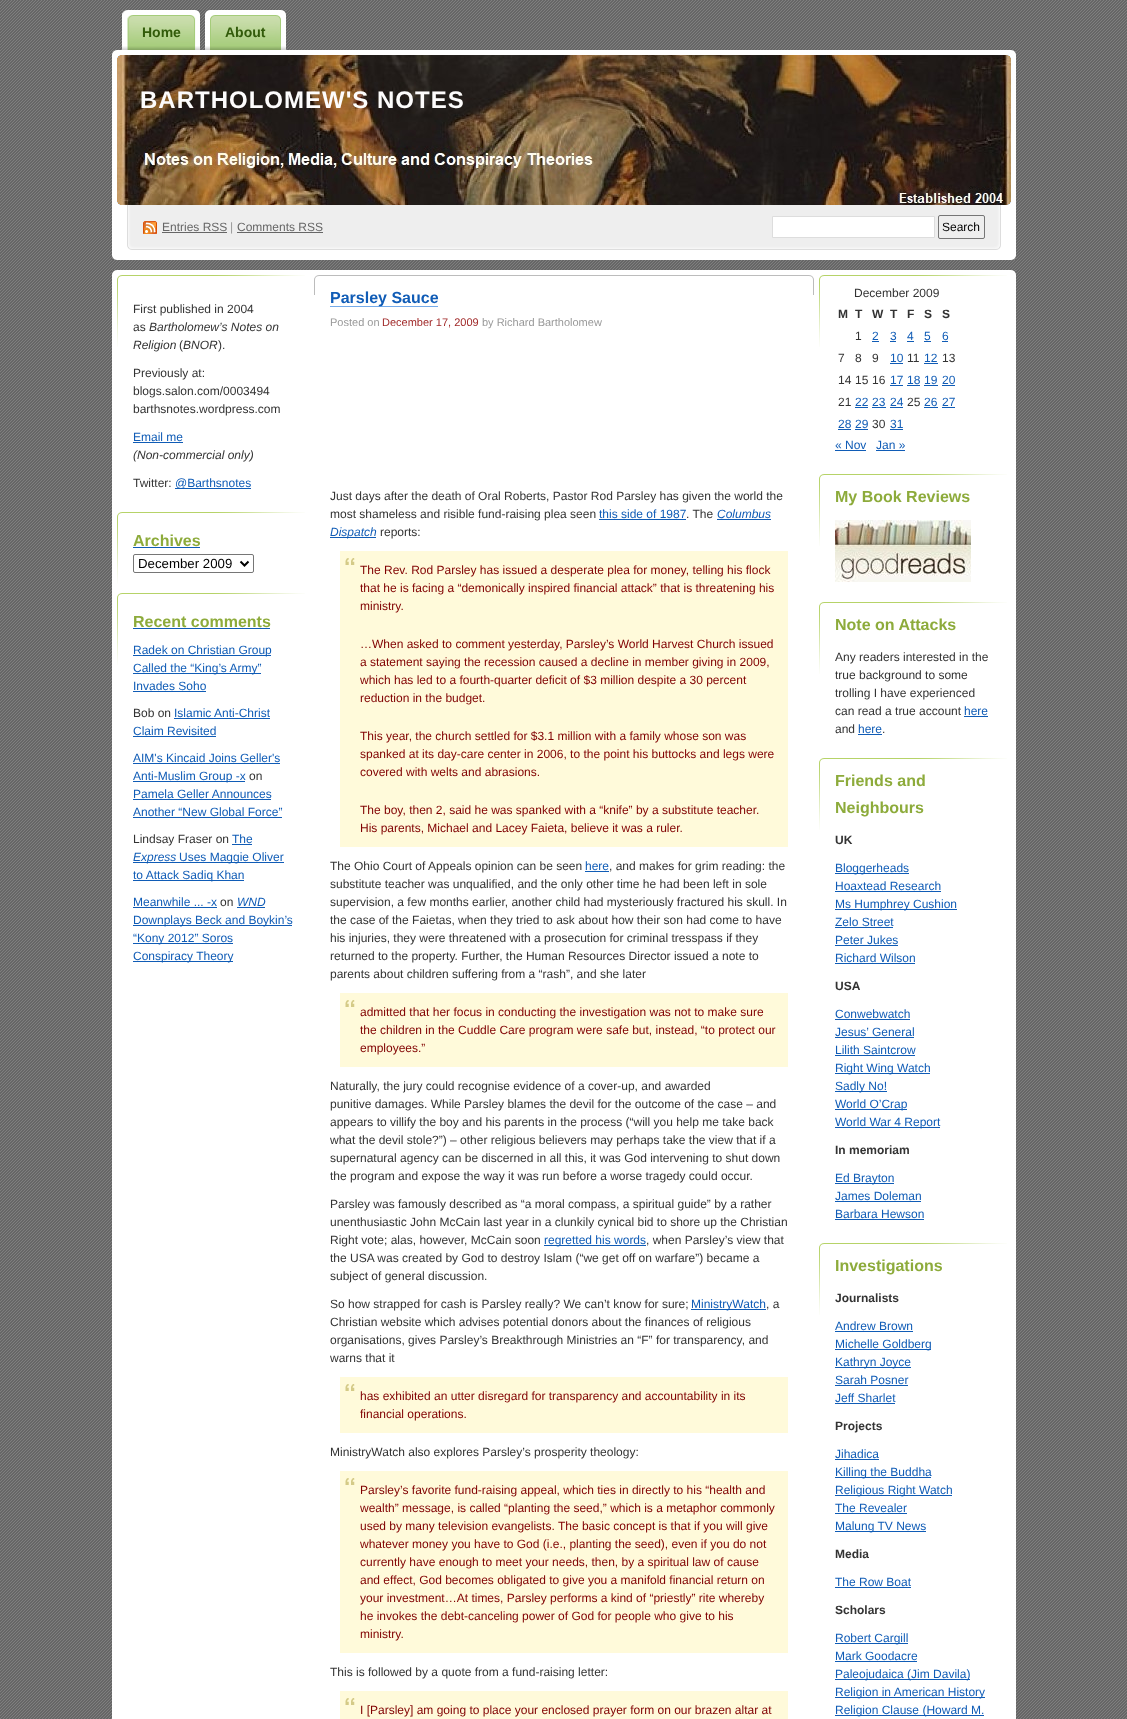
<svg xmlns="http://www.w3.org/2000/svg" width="1127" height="1719">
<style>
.a{font:bold 14px Liberation Sans;fill:#325b0a}
.b{font:bold 24px Liberation Sans;letter-spacing:1px;fill:#fdfcfc}
.c{font:12px Liberation Sans;fill:#666}
.d{font:12px Liberation Sans;fill:#999}
.e{font:12px Liberation Sans;fill:#000}
.f{font:12px Liberation Sans;fill:#333}
.g{font:italic 12px Liberation Sans;fill:#333}
.h{font:12px Liberation Sans;fill:#105cb6}
.i{font:bold 16px Liberation Sans;fill:#8dab3b}
.j{font:13.25px Liberation Sans;fill:#000}
.k{font:italic 12px Liberation Sans;fill:#105cb6}
.l{font:bold 16px Liberation Sans;fill:#105cb6}
.m{font:11px Liberation Sans;fill:#999}
.n{font:11px Liberation Sans;fill:#a12a2a}
.o{font:12px Liberation Sans;fill:#800000}
.p{font:bold 12px Liberation Sans;fill:#333}
</style>
<rect width="100%" height="100%" fill="#fff"/>
<image href="1.png" x="0" y="0" width="1127" height="1719"/>
<image href="2.png" x="133" y="10" width="67" height="40"/>
<image href="3.png" x="122" y="10" width="11" height="40"/>
<image href="4.png" x="215" y="10" width="71" height="40"/>
<image href="5.png" x="205" y="10" width="10" height="40"/>
<image href="7.png" x="117" y="55" width="894" height="150"/>
<image href="6.png" x="112" y="50" width="904" height="210"/>
<image href="8.png" x="143" y="221" width="14" height="13"/>
<path fill="#666" d="M162 232h65v1H162z"/>
<path fill="#666" d="M237 232h86v1H237z"/>
<path fill="#fff" stroke="#ddd" d="M772.5 216.5h162v21H772.5z"/>
<rect fill="none" stroke="#767676" x="938.5" y="215.5" width="46" height="23" rx="1.5"/>
<path fill="#fff" d="M112 275h904v1444H112z"/>
<image href="9.png" x="112" y="270" width="904" height="5"/>
<image href="10.png" x="117" y="275" width="188" height="72"/>
<path fill="#105cb6" d="M133 442h50v1H133z"/>
<path fill="#105cb6" d="M175 488h76v1H175z"/>
<image href="10.png" x="117" y="512" width="188" height="72"/>
<path fill="#105cb6" d="M133 547h67v1H133z"/>
<rect fill="none" stroke="#767676" x="133.5" y="554.5" width="120" height="18" rx="1.5"/>
<path fill="none" stroke="#000" stroke-width="2" d="M240.5 561.5l4 4l4-4"/>
<image href="10.png" x="117" y="593" width="188" height="72"/>
<path fill="#105cb6" d="M133 628h137v1H133z"/>
<path fill="#105cb6" d="M133 655h138v1H133z"/>
<path fill="#105cb6" d="M133 673h128v1H133z"/>
<path fill="#105cb6" d="M133 691h73v1H133z"/>
<path fill="#105cb6" d="M174 718h96v1H174z"/>
<path fill="#105cb6" d="M133 736h83v1H133z"/>
<path fill="#105cb6" d="M133 763h147v1H133z"/>
<path fill="#105cb6" d="M133 781h112v1H133z"/>
<path fill="#105cb6" d="M133 799h138v1H133z"/>
<path fill="#105cb6" d="M133 817h149v1H133z"/>
<path fill="#105cb6" d="M232 844h20v1H232z"/>
<path fill="#105cb6" d="M133 862h151v1H133z"/>
<path fill="#105cb6" d="M133 880h111v1H133z"/>
<path fill="#105cb6" d="M133 907h84v1H133z"/>
<path fill="#105cb6" d="M237 907h28v1H237z"/>
<path fill="#105cb6" d="M133 925h159v1H133z"/>
<path fill="#105cb6" d="M133 943h100v1H133z"/>
<path fill="#105cb6" d="M133 961h100v1H133z"/>
<image href="11.png" x="314" y="275" width="500" height="20"/>
<path fill="#75abea" d="M330 306h108v1H330z"/>
<path fill="#105cb6" d="M599 519h87v1H599z"/>
<path fill="#105cb6" d="M717 519h54v1H717z"/>
<path fill="#105cb6" d="M330 537h46v1H330z"/>
<path fill="#fffada" d="M340 551h448v296H340z"/>
<image href="12.png" x="345" y="558" width="10" height="7"/>
<path fill="#105cb6" d="M585 871h24v1H585z"/>
<path fill="#fffada" d="M340 993h448v74H340z"/>
<image href="12.png" x="345" y="1000" width="10" height="7"/>
<path fill="#105cb6" d="M544 1245h102v1H544z"/>
<path fill="#105cb6" d="M691 1309h75v1H691z"/>
<path fill="#fffada" d="M340 1377h448v56H340z"/>
<image href="12.png" x="345" y="1384" width="10" height="7"/>
<path fill="#fffada" d="M340 1471h448v182H340z"/>
<image href="12.png" x="345" y="1478" width="10" height="7"/>
<path fill="#fffada" d="M340 1691h448v28H340z"/>
<image href="12.png" x="345" y="1698" width="10" height="7"/>
<image href="10.png" x="819" y="275" width="188" height="72"/>
<path fill="#105cb6" d="M872 341h7v1H872z"/>
<path fill="#105cb6" d="M890 341h6v1H890z"/>
<path fill="#105cb6" d="M907 341h7v1H907z"/>
<path fill="#105cb6" d="M924 341h7v1H924z"/>
<path fill="#105cb6" d="M942 341h6v1H942z"/>
<path fill="#105cb6" d="M890 363h13v1H890z"/>
<path fill="#105cb6" d="M924 363h14v1H924z"/>
<path fill="#105cb6" d="M890 385h13v1H890z"/>
<path fill="#105cb6" d="M907 385h13v1H907z"/>
<path fill="#105cb6" d="M924 385h14v1H924z"/>
<path fill="#105cb6" d="M942 385h13v1H942z"/>
<path fill="#105cb6" d="M855 407h13v1H855z"/>
<path fill="#105cb6" d="M872 407h14v1H872z"/>
<path fill="#105cb6" d="M890 407h13v1H890z"/>
<path fill="#105cb6" d="M924 407h14v1H924z"/>
<path fill="#105cb6" d="M942 407h13v1H942z"/>
<path fill="#105cb6" d="M838 429h13v1H838z"/>
<path fill="#105cb6" d="M855 429h13v1H855z"/>
<path fill="#105cb6" d="M890 429h13v1H890z"/>
<path fill="#105cb6" d="M835 450h31v1H835z"/>
<path fill="#105cb6" d="M876 450h29v1H876z"/>
<image href="10.png" x="819" y="474" width="188" height="72"/>
<image href="13.png" x="835" y="520" width="136" height="62"/>
<image href="10.png" x="819" y="602" width="188" height="72"/>
<path fill="#105cb6" d="M964 716h24v1H964z"/>
<path fill="#105cb6" d="M858 734h24v1H858z"/>
<image href="10.png" x="819" y="758" width="188" height="72"/>
<path fill="#105cb6" d="M835 873h74v1H835z"/>
<path fill="#105cb6" d="M835 891h106v1H835z"/>
<path fill="#105cb6" d="M835 909h122v1H835z"/>
<path fill="#105cb6" d="M835 927h58v1H835z"/>
<path fill="#105cb6" d="M835 945h63v1H835z"/>
<path fill="#105cb6" d="M835 963h80v1H835z"/>
<path fill="#105cb6" d="M835 1019h75v1H835z"/>
<path fill="#105cb6" d="M835 1037h79v1H835z"/>
<path fill="#105cb6" d="M835 1055h80v1H835z"/>
<path fill="#105cb6" d="M835 1073h95v1H835z"/>
<path fill="#105cb6" d="M835 1091h52v1H835z"/>
<path fill="#105cb6" d="M835 1109h72v1H835z"/>
<path fill="#105cb6" d="M835 1127h105v1H835z"/>
<path fill="#105cb6" d="M835 1183h59v1H835z"/>
<path fill="#105cb6" d="M835 1201h86v1H835z"/>
<path fill="#105cb6" d="M835 1219h89v1H835z"/>
<image href="10.png" x="819" y="1243" width="188" height="72"/>
<path fill="#105cb6" d="M835 1331h78v1H835z"/>
<path fill="#105cb6" d="M835 1349h96v1H835z"/>
<path fill="#105cb6" d="M835 1367h76v1H835z"/>
<path fill="#105cb6" d="M835 1385h73v1H835z"/>
<path fill="#105cb6" d="M835 1403h60v1H835z"/>
<path fill="#105cb6" d="M835 1459h44v1H835z"/>
<path fill="#105cb6" d="M835 1477h96v1H835z"/>
<path fill="#105cb6" d="M835 1495h117v1H835z"/>
<path fill="#105cb6" d="M835 1513h72v1H835z"/>
<path fill="#105cb6" d="M835 1531h91v1H835z"/>
<path fill="#105cb6" d="M835 1587h76v1H835z"/>
<path fill="#105cb6" d="M835 1643h73v1H835z"/>
<path fill="#105cb6" d="M835 1661h82v1H835z"/>
<path fill="#105cb6" d="M835 1679h135v1H835z"/>
<path fill="#105cb6" d="M835 1697h150v1H835z"/>
<path fill="#105cb6" d="M835 1715h149v1H835z"/>
<text class="a" x="142" y="37">Home</text>
<text class="a" x="225" y="37">About</text>
<text class="b" x="140" y="108">BARTHOLOMEW'S NOTES</text>
<text class="c" x="162" y="231">Entries RSS</text>
<text class="d" x="230" y="231">|</text>
<text class="c" x="237" y="231">Comments RSS</text>
<text class="e" x="942" y="231">Search</text>
<text class="f" x="133" y="313">First published in 2004</text>
<text class="f" x="133" y="331">as</text>
<text class="g" x="149" y="331">Bartholomew’s Notes on</text>
<text class="g" x="133" y="349">Religion</text>
<text class="f" x="179" y="349">(</text>
<text class="g" x="183" y="349">BNOR</text>
<text class="f" x="218" y="349">).</text>
<text class="f" x="133" y="377">Previously at:</text>
<text class="f" x="133" y="395">blogs.salon.com/0003494</text>
<text class="f" x="133" y="413">barthsnotes.wordpress.com</text>
<text class="h" x="133" y="441">Email me</text>
<text class="g" x="133" y="459">(Non-commercial only)</text>
<text class="f" x="133" y="487">Twitter:</text>
<text class="h" x="175" y="487">@Barthsnotes</text>
<text class="i" x="133" y="546">Archives</text>
<text class="j" x="138" y="568">December 2009</text>
<text class="i" x="133" y="627">Recent comments</text>
<text class="h" x="133" y="654">Radek on Christian Group</text>
<text class="h" x="133" y="672">Called the “King’s Army”</text>
<text class="h" x="133" y="690">Invades Soho</text>
<text class="f" x="133" y="717">Bob on</text>
<text class="h" x="174" y="717">Islamic Anti-Christ</text>
<text class="h" x="133" y="735">Claim Revisited</text>
<text class="h" x="133" y="762">AIM's Kincaid Joins Geller's</text>
<text class="h" x="133" y="780">Anti-Muslim Group -x</text>
<text class="f" x="249" y="780">on</text>
<text class="h" x="133" y="798">Pamela Geller Announces</text>
<text class="h" x="133" y="816">Another “New Global Force”</text>
<text class="f" x="133" y="843">Lindsay Fraser on</text>
<text class="h" x="232" y="843">The</text>
<text class="k" x="133" y="861">Express</text>
<text class="h" x="179" y="861">Uses Maggie Oliver</text>
<text class="h" x="133" y="879">to Attack Sadiq Khan</text>
<text class="h" x="133" y="906">Meanwhile ... -x</text>
<text class="f" x="220" y="906">on</text>
<text class="k" x="237" y="906">WND</text>
<text class="h" x="133" y="924">Downplays Beck and Boykin’s</text>
<text class="h" x="133" y="942">“Kony 2012” Soros</text>
<text class="h" x="133" y="960">Conspiracy Theory</text>
<text class="l" x="330" y="303">Parsley Sauce</text>
<text class="m" x="330" y="326">Posted on</text>
<text class="n" x="382" y="326">December 17, 2009</text>
<text class="m" x="482" y="326">by Richard Bartholomew</text>
<text class="f" x="330" y="500">Just days after the death of Oral Roberts, Pastor Rod Parsley has given the world the</text>
<text class="f" x="330" y="518">most shameless and risible fund-raising plea seen</text>
<text class="h" x="599" y="518">this side of 1987</text>
<text class="f" x="686" y="518">. The</text>
<text class="k" x="717" y="518">Columbus</text>
<text class="k" x="330" y="536">Dispatch</text>
<text class="f" x="380" y="536">reports:</text>
<text class="o" x="360" y="574">The Rev. Rod Parsley has issued a desperate plea for money, telling his flock</text>
<text class="o" x="360" y="592">that he is facing a “demonically inspired financial attack” that is threatening his</text>
<text class="o" x="360" y="610">ministry.</text>
<text class="o" x="360" y="648">…When asked to comment yesterday, Parsley’s World Harvest Church issued</text>
<text class="o" x="360" y="666">a statement saying the recession caused a decline in member giving in 2009,</text>
<text class="o" x="360" y="684">which has led to a fourth-quarter deficit of $3 million despite a 30 percent</text>
<text class="o" x="360" y="702">reduction in the budget.</text>
<text class="o" x="360" y="740">This year, the church settled for $3.1 million with a family whose son was</text>
<text class="o" x="360" y="758">spanked at its day-care center in 2006, to the point his buttocks and legs were</text>
<text class="o" x="360" y="776">covered with welts and abrasions.</text>
<text class="o" x="360" y="814">The boy, then 2, said he was spanked with a “knife” by a substitute teacher.</text>
<text class="o" x="360" y="832">His parents, Michael and Lacey Faieta, believe it was a ruler.</text>
<text class="f" x="330" y="870">The Ohio Court of Appeals opinion can be seen</text>
<text class="h" x="585" y="870">here</text>
<text class="f" x="609" y="870">, and makes for grim reading: the</text>
<text class="f" x="330" y="888">substitute teacher was unqualified, and the only other time he had been left in sole</text>
<text class="f" x="330" y="906">supervision, a few months earlier, another child had mysteriously fractured his skull. In</text>
<text class="f" x="330" y="924">the case of the Faietas, when they tried to ask about how their son had come to have</text>
<text class="f" x="330" y="942">his injuries, they were threatened with a prosecution for criminal tresspass if they</text>
<text class="f" x="330" y="960">returned to the property. Further, the Human Resources Director issued a note to</text>
<text class="f" x="330" y="978">parents about children suffering from a “rash”, and she later</text>
<text class="o" x="360" y="1016">admitted that her focus in conducting the investigation was not to make sure</text>
<text class="o" x="360" y="1034">the children in the Cuddle Care program were safe but, instead, “to protect our</text>
<text class="o" x="360" y="1052">employees.”</text>
<text class="f" x="330" y="1090">Naturally, the jury could recognise evidence of a cover-up, and awarded</text>
<text class="f" x="330" y="1108">punitive damages. While Parsley blames the devil for the outcome of the case – and</text>
<text class="f" x="330" y="1126">appears to villify the boy and his parents in the process (“will you help me take back</text>
<text class="f" x="330" y="1144">what the devil stole?”) – other religious believers may perhaps take the view that if a</text>
<text class="f" x="330" y="1162">supernatural agency can be discerned in all this, it was God intervening to shut down</text>
<text class="f" x="330" y="1180">the program and expose the way it was run before a worse tragedy could occur.</text>
<text class="f" x="330" y="1208">Parsley was famously described as “a moral compass, a spiritual guide” by a rather</text>
<text class="f" x="330" y="1226">unenthusiastic John McCain last year in a clunkily cynical bid to shore up the Christian</text>
<text class="f" x="330" y="1244">Right vote; alas, however, McCain soon</text>
<text class="h" x="544" y="1244">regretted his words</text>
<text class="f" x="646" y="1244">, when Parsley’s view that</text>
<text class="f" x="330" y="1262">the USA was created by God to destroy Islam (“we get off on warfare”) became a</text>
<text class="f" x="330" y="1280">subject of general discussion.</text>
<text class="f" x="330" y="1308">So how strapped for cash is Parsley really? We can’t know for sure;</text>
<text class="h" x="691" y="1308">MinistryWatch</text>
<text class="f" x="766" y="1308">, a</text>
<text class="f" x="330" y="1326">Christian website which advises potential donors about the finances of religious</text>
<text class="f" x="330" y="1344">organisations, gives Parsley’s Breakthrough Ministries an “F” for transparency, and</text>
<text class="f" x="330" y="1362">warns that it</text>
<text class="o" x="360" y="1400">has exhibited an utter disregard for transparency and accountability in its</text>
<text class="o" x="360" y="1418">financial operations.</text>
<text class="f" x="330" y="1456">MinistryWatch also explores Parsley’s prosperity theology:</text>
<text class="o" x="360" y="1494">Parsley’s favorite fund-raising appeal, which ties in directly to his “health and</text>
<text class="o" x="360" y="1512">wealth” message, is called “planting the seed,” which is a metaphor commonly</text>
<text class="o" x="360" y="1530">used by many television evangelists. The basic concept is that if you will give</text>
<text class="o" x="360" y="1548">whatever money you have to God (i.e., planting the seed), even if you do not</text>
<text class="o" x="360" y="1566">currently have enough to meet your needs, then, by a spiritual law of cause</text>
<text class="o" x="360" y="1584">and effect, God becomes obligated to give you a manifold financial return on</text>
<text class="o" x="360" y="1602">your investment…At times, Parsley performs a kind of “priestly” rite whereby</text>
<text class="o" x="360" y="1620">he invokes the debt-canceling power of God for people who give to his</text>
<text class="o" x="360" y="1638">ministry.</text>
<text class="f" x="330" y="1676">This is followed by a quote from a fund-raising letter:</text>
<text class="o" x="360" y="1714">I [Parsley] am going to place your enclosed prayer form on our brazen altar at</text>
<text class="f" x="854" y="297">December 2009</text>
<text class="p" x="838" y="318">M</text>
<text class="p" x="855" y="318">T</text>
<text class="p" x="872" y="318">W</text>
<text class="p" x="890" y="318">T</text>
<text class="p" x="907" y="318">F</text>
<text class="p" x="924" y="318">S</text>
<text class="p" x="942" y="318">S</text>
<text class="f" x="855" y="340">1</text>
<text class="h" x="872" y="340">2</text>
<text class="h" x="890" y="340">3</text>
<text class="h" x="907" y="340">4</text>
<text class="h" x="924" y="340">5</text>
<text class="h" x="942" y="340">6</text>
<text class="f" x="838" y="362">7</text>
<text class="f" x="855" y="362">8</text>
<text class="f" x="872" y="362">9</text>
<text class="h" x="890" y="362">10</text>
<text class="f" x="907" y="362">11</text>
<text class="h" x="924" y="362">12</text>
<text class="f" x="942" y="362">13</text>
<text class="f" x="838" y="384">14</text>
<text class="f" x="855" y="384">15</text>
<text class="f" x="872" y="384">16</text>
<text class="h" x="890" y="384">17</text>
<text class="h" x="907" y="384">18</text>
<text class="h" x="924" y="384">19</text>
<text class="h" x="942" y="384">20</text>
<text class="f" x="838" y="406">21</text>
<text class="h" x="855" y="406">22</text>
<text class="h" x="872" y="406">23</text>
<text class="h" x="890" y="406">24</text>
<text class="f" x="907" y="406">25</text>
<text class="h" x="924" y="406">26</text>
<text class="h" x="942" y="406">27</text>
<text class="h" x="838" y="428">28</text>
<text class="h" x="855" y="428">29</text>
<text class="f" x="872" y="428">30</text>
<text class="h" x="890" y="428">31</text>
<text class="h" x="835" y="449">« Nov</text>
<text class="h" x="876" y="449">Jan »</text>
<text class="i" x="835" y="502">My Book Reviews</text>
<text class="i" x="835" y="630">Note on Attacks</text>
<text class="f" x="835" y="661">Any readers interested in the</text>
<text class="f" x="835" y="679">true background to some</text>
<text class="f" x="835" y="697">trolling I have experienced</text>
<text class="f" x="835" y="715">can read a true account</text>
<text class="h" x="964" y="715">here</text>
<text class="f" x="835" y="733">and</text>
<text class="h" x="858" y="733">here</text>
<text class="f" x="882" y="733">.</text>
<text class="i" x="835" y="786">Friends and</text>
<text class="i" x="835" y="813">Neighbours</text>
<text class="p" x="835" y="844">UK</text>
<text class="h" x="835" y="872">Bloggerheads</text>
<text class="h" x="835" y="890">Hoaxtead Research</text>
<text class="h" x="835" y="908">Ms Humphrey Cushion</text>
<text class="h" x="835" y="926">Zelo Street</text>
<text class="h" x="835" y="944">Peter Jukes</text>
<text class="h" x="835" y="962">Richard Wilson</text>
<text class="p" x="835" y="990">USA</text>
<text class="h" x="835" y="1018">Conwebwatch</text>
<text class="h" x="835" y="1036">Jesus’ General</text>
<text class="h" x="835" y="1054">Lilith Saintcrow</text>
<text class="h" x="835" y="1072">Right Wing Watch</text>
<text class="h" x="835" y="1090">Sadly No!</text>
<text class="h" x="835" y="1108">World O’Crap</text>
<text class="h" x="835" y="1126">World War 4 Report</text>
<text class="p" x="835" y="1154">In memoriam</text>
<text class="h" x="835" y="1182">Ed Brayton</text>
<text class="h" x="835" y="1200">James Doleman</text>
<text class="h" x="835" y="1218">Barbara Hewson</text>
<text class="i" x="835" y="1271">Investigations</text>
<text class="p" x="835" y="1302">Journalists</text>
<text class="h" x="835" y="1330">Andrew Brown</text>
<text class="h" x="835" y="1348">Michelle Goldberg</text>
<text class="h" x="835" y="1366">Kathryn Joyce</text>
<text class="h" x="835" y="1384">Sarah Posner</text>
<text class="h" x="835" y="1402">Jeff Sharlet</text>
<text class="p" x="835" y="1430">Projects</text>
<text class="h" x="835" y="1458">Jihadica</text>
<text class="h" x="835" y="1476">Killing the Buddha</text>
<text class="h" x="835" y="1494">Religious Right Watch</text>
<text class="h" x="835" y="1512">The Revealer</text>
<text class="h" x="835" y="1530">Malung TV News</text>
<text class="p" x="835" y="1558">Media</text>
<text class="h" x="835" y="1586">The Row Boat</text>
<text class="p" x="835" y="1614">Scholars</text>
<text class="h" x="835" y="1642">Robert Cargill</text>
<text class="h" x="835" y="1660">Mark Goodacre</text>
<text class="h" x="835" y="1678">Paleojudaica (Jim Davila)</text>
<text class="h" x="835" y="1696">Religion in American History</text>
<text class="h" x="835" y="1714">Religion Clause (Howard M.</text>
</svg>
